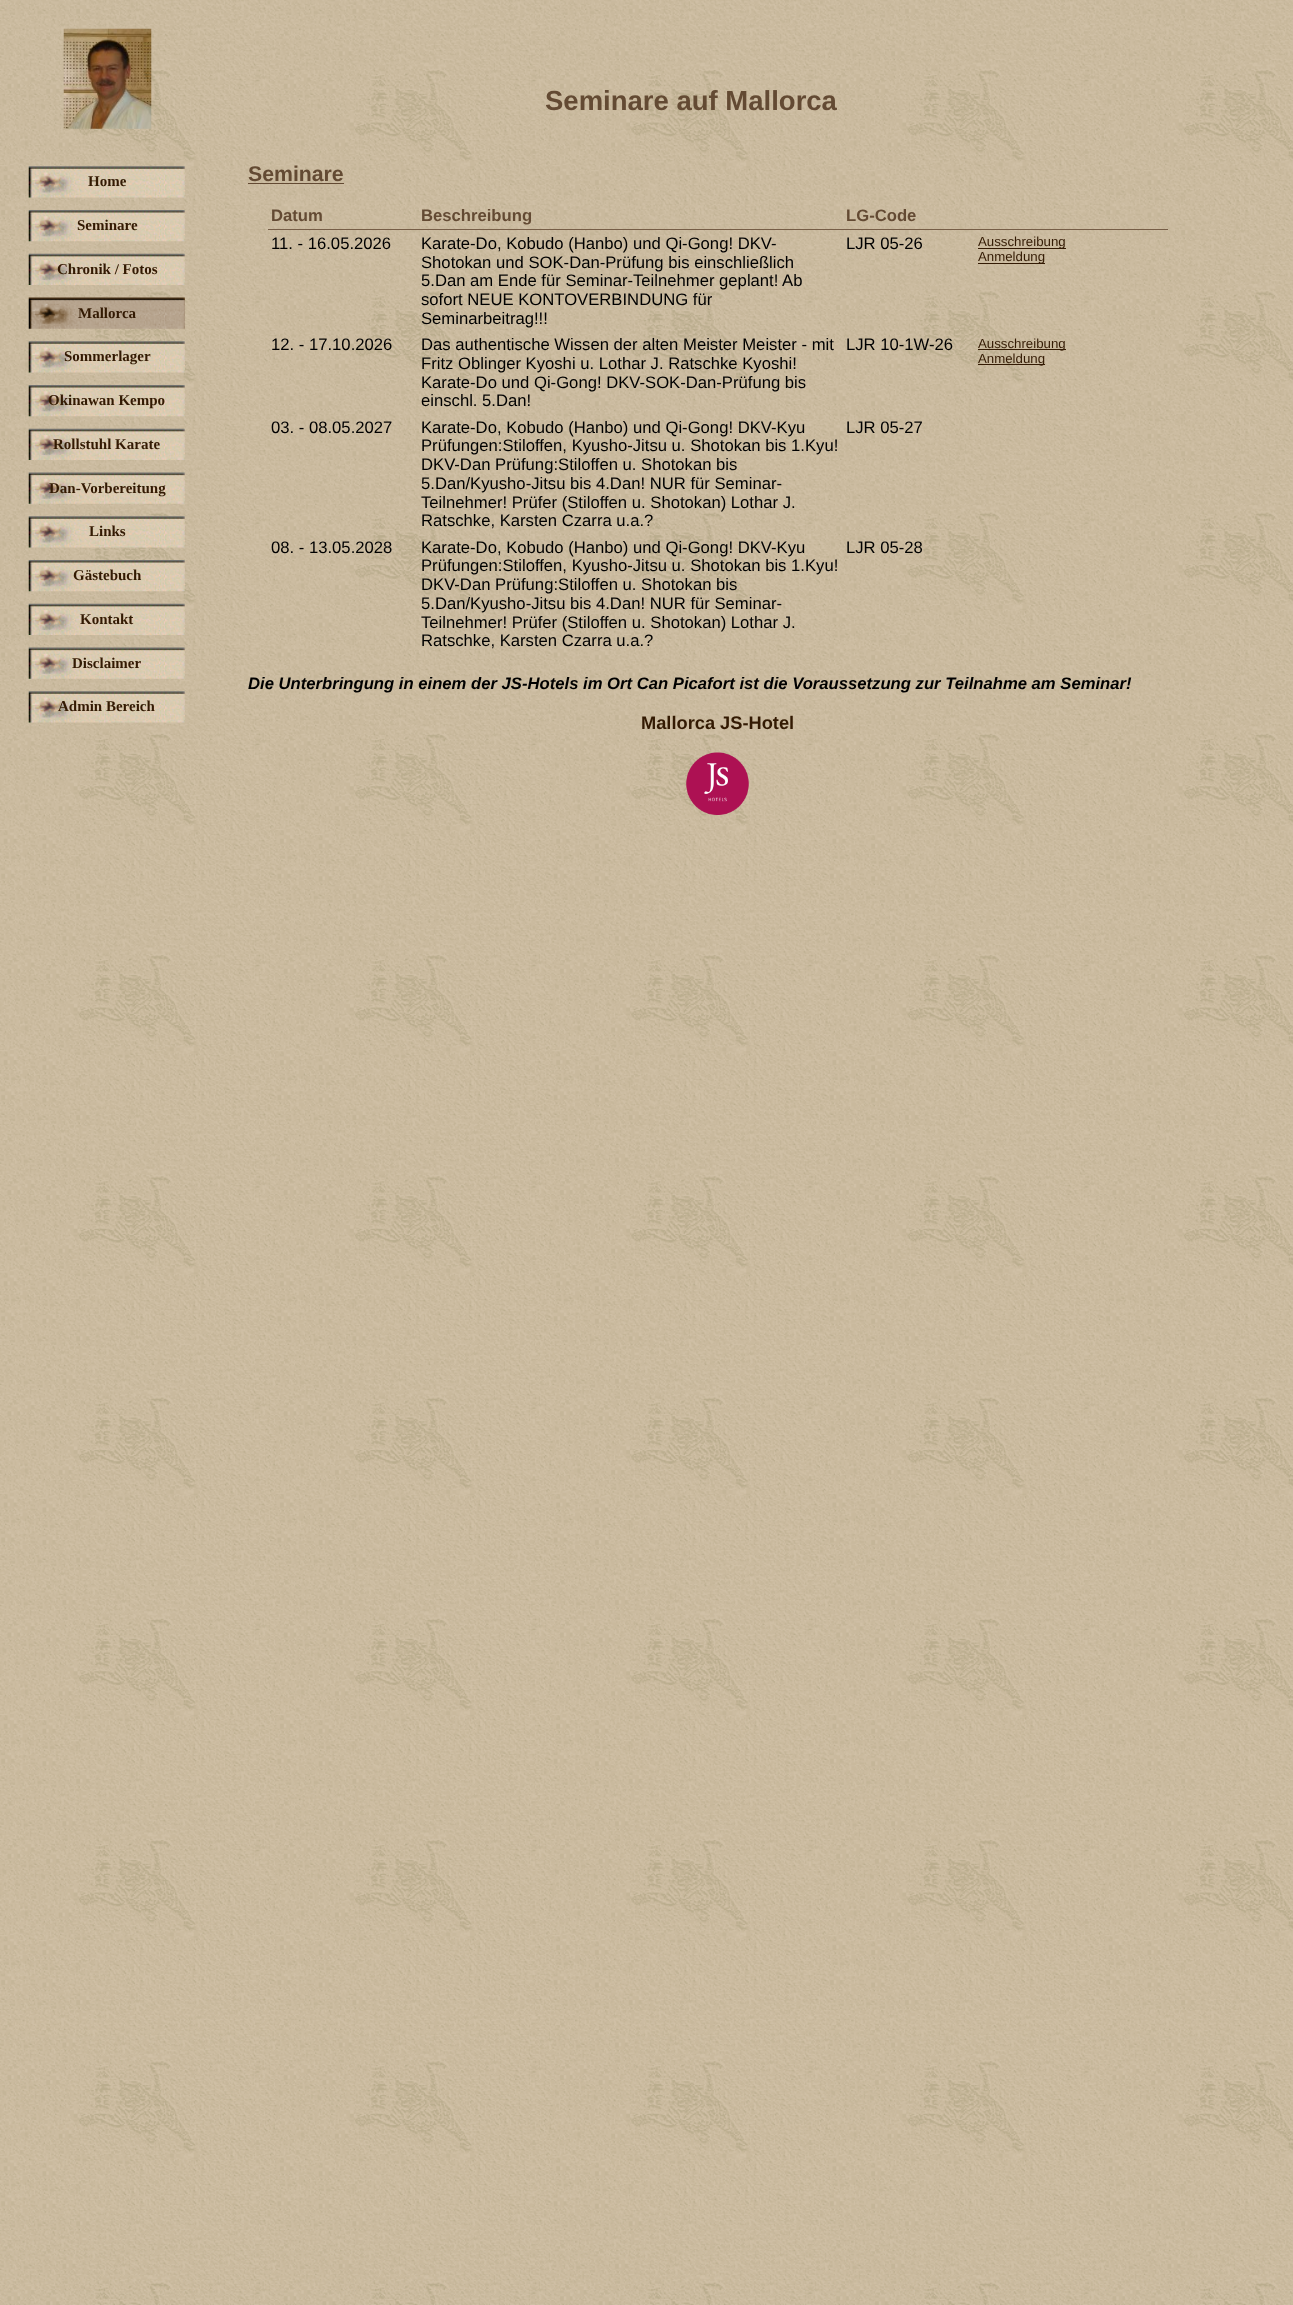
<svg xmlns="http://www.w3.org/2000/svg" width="1293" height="2305">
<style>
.a{font:bold 15px Liberation Serif;fill:#331a03}
.b{font:bold 27.5px Liberation Sans;fill:#634a33}
.c{font:bold 21.25px Liberation Sans;fill:#634a33}
.d{font:bold 16.67px Liberation Sans;fill:#634a33}
.e{font:16.67px Liberation Sans;fill:#000}
.f{font:13.25px Liberation Sans;fill:#331a03}
.g{font:italic bold 16.67px Liberation Sans;fill:#000}
.h{font:bold 18.25px Liberation Sans;fill:#331a03}
</style>
<rect width="100%" height="100%" fill="#fff"/>
<image href="1.png" x="0" y="0" width="1293" height="2305"/>
<image href="2.png" x="63" y="28" width="89" height="101"/>
<image href="3.png" x="28" y="166" width="157" height="32"/>
<image href="4.png" x="28" y="210" width="157" height="32"/>
<image href="5.png" x="28" y="253" width="157" height="32"/>
<image href="6.png" x="28" y="297" width="157" height="32"/>
<image href="7.png" x="28" y="341" width="157" height="32"/>
<image href="8.png" x="28" y="385" width="157" height="32"/>
<image href="9.png" x="28" y="428" width="157" height="32"/>
<image href="10.png" x="28" y="472" width="157" height="32"/>
<image href="11.png" x="28" y="516" width="157" height="32"/>
<image href="12.png" x="28" y="560" width="157" height="32"/>
<image href="13.png" x="28" y="603" width="157" height="32"/>
<image href="14.png" x="28" y="647" width="157" height="32"/>
<image href="15.png" x="28" y="691" width="157" height="32"/>
<path fill="#634a33" d="M248 183h96v1H248z"/>
<path fill="#765d46" d="M268 229h900v1H268z"/>
<path fill="#331a03" d="M978 248h88v1H978z"/>
<path fill="#331a03" d="M978 263h67v1H978z"/>
<path fill="#331a03" d="M978 349h88v1H978z"/>
<path fill="#331a03" d="M978 364h67v1H978z"/>
<image href="16.png" x="686" y="752" width="63" height="63"/>
<text class="a" x="88" y="186">Home</text>
<text class="a" x="77" y="230">Seminare</text>
<text class="a" x="57" y="274">Chronik / Fotos</text>
<text class="a" x="78" y="318">Mallorca</text>
<text class="a" x="64" y="361">Sommerlager</text>
<text class="a" x="48" y="405">Okinawan Kempo</text>
<text class="a" x="53" y="449">Rollstuhl Karate</text>
<text class="a" x="49" y="493">Dan-Vorbereitung</text>
<text class="a" x="89" y="536">Links</text>
<text class="a" x="73" y="580">Gästebuch</text>
<text class="a" x="80" y="624">Kontakt</text>
<text class="a" x="72" y="668">Disclaimer</text>
<text class="a" x="58" y="711">Admin Bereich</text>
<text class="b" x="545" y="110">Seminare auf Mallorca</text>
<text class="c" x="248" y="181">Seminare</text>
<text class="d" x="271" y="221">Datum</text>
<text class="d" x="421" y="221">Beschreibung</text>
<text class="d" x="846" y="221">LG-Code</text>
<text class="e" x="271" y="249">11. - 16.05.2026</text>
<text class="e" x="421" y="249">Karate-Do, Kobudo (Hanbo) und Qi-Gong! DKV-</text>
<text class="e" x="421" y="268">Shotokan und SOK-Dan-Prüfung bis einschließlich</text>
<text class="e" x="421" y="286">5.Dan am Ende für Seminar-Teilnehmer geplant! Ab</text>
<text class="e" x="421" y="305">sofort NEUE KONTOVERBINDUNG für</text>
<text class="e" x="421" y="324">Seminarbeitrag!!!</text>
<text class="e" x="846" y="249">LJR 05-26</text>
<text class="f" x="978" y="246">Ausschreibung</text>
<text class="f" x="978" y="261">Anmeldung</text>
<text class="e" x="271" y="350">12. - 17.10.2026</text>
<text class="e" x="421" y="350">Das authentische Wissen der alten Meister Meister - mit</text>
<text class="e" x="421" y="369">Fritz Oblinger Kyoshi u. Lothar J. Ratschke Kyoshi!</text>
<text class="e" x="421" y="388">Karate-Do und Qi-Gong! DKV-SOK-Dan-Prüfung bis</text>
<text class="e" x="421" y="406">einschl. 5.Dan!</text>
<text class="e" x="846" y="350">LJR 10-1W-26</text>
<text class="f" x="978" y="348">Ausschreibung</text>
<text class="f" x="978" y="363">Anmeldung</text>
<text class="e" x="271" y="433">03. - 08.05.2027</text>
<text class="e" x="421" y="433">Karate-Do, Kobudo (Hanbo) und Qi-Gong! DKV-Kyu</text>
<text class="e" x="421" y="451">Prüfungen:Stiloffen, Kyusho-Jitsu u. Shotokan bis 1.Kyu!</text>
<text class="e" x="421" y="470">DKV-Dan Prüfung:Stiloffen u. Shotokan bis</text>
<text class="e" x="421" y="489">5.Dan/Kyusho-Jitsu bis 4.Dan! NUR für Seminar-</text>
<text class="e" x="421" y="508">Teilnehmer! Prüfer (Stiloffen u. Shotokan) Lothar J.</text>
<text class="e" x="421" y="526">Ratschke, Karsten Czarra u.a.?</text>
<text class="e" x="846" y="433">LJR 05-27</text>
<text class="e" x="271" y="553">08. - 13.05.2028</text>
<text class="e" x="421" y="553">Karate-Do, Kobudo (Hanbo) und Qi-Gong! DKV-Kyu</text>
<text class="e" x="421" y="571">Prüfungen:Stiloffen, Kyusho-Jitsu u. Shotokan bis 1.Kyu!</text>
<text class="e" x="421" y="590">DKV-Dan Prüfung:Stiloffen u. Shotokan bis</text>
<text class="e" x="421" y="609">5.Dan/Kyusho-Jitsu bis 4.Dan! NUR für Seminar-</text>
<text class="e" x="421" y="628">Teilnehmer! Prüfer (Stiloffen u. Shotokan) Lothar J.</text>
<text class="e" x="421" y="646">Ratschke, Karsten Czarra u.a.?</text>
<text class="e" x="846" y="553">LJR 05-28</text>
<text class="g" x="248" y="689">Die Unterbringung in einem der JS-Hotels im Ort Can Picafort ist die Voraussetzung zur Teilnahme am Seminar!</text>
<text class="h" x="641" y="729">Mallorca JS-Hotel</text>
</svg>
